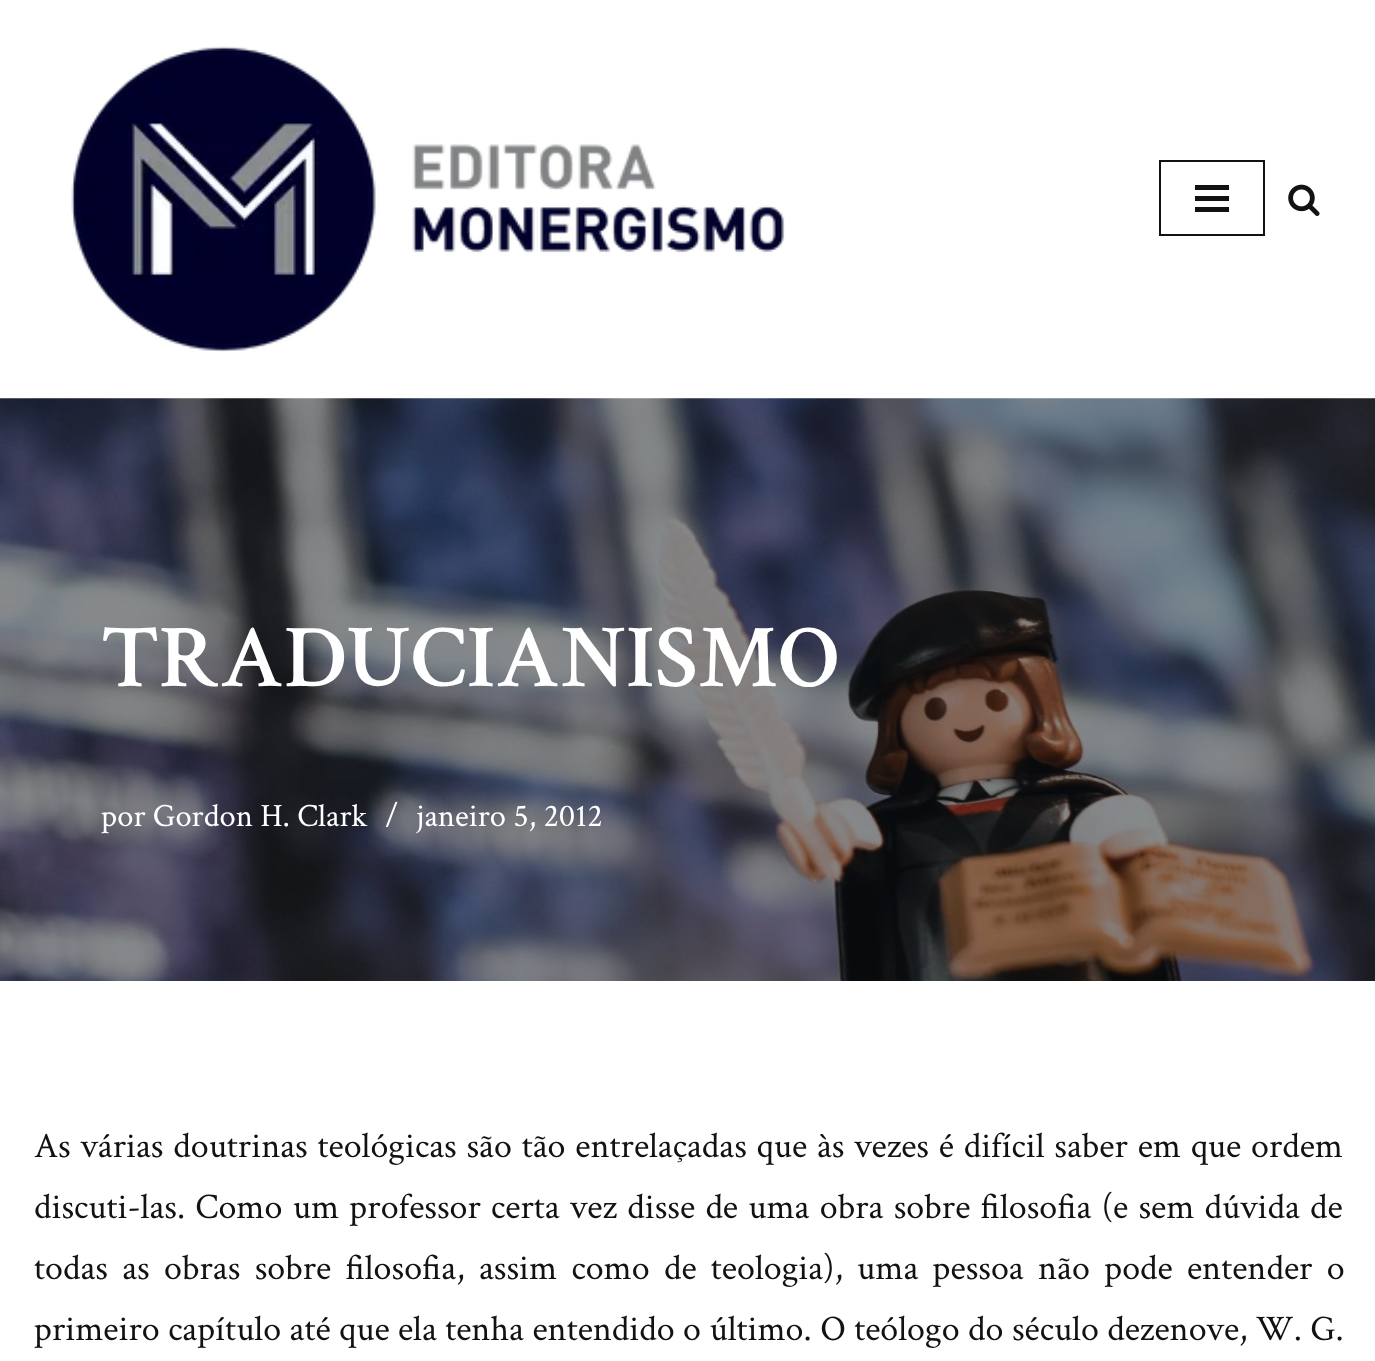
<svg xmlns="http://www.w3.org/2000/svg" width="1375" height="1361">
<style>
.a{font:600 90px Crimson Text;fill:#fff}
.b{font:32.5px Crimson Text;fill:#fff}
.c{font:36px Crimson Text;fill:#121212}
</style>
<rect width="100%" height="100%" fill="#fff"/>
<image href="1.png" x="71" y="46" width="714" height="306"/>
<path fill="none" stroke="#121212" stroke-width="2" d="M1160 161h104v74H1160z"/>
<path fill="#121212" d="M1195 185h34v5H1195z"/>
<path fill="#121212" d="M1195 196h34v5H1195z"/>
<path fill="#121212" d="M1195 207h34v5H1195z"/>
<image href="2.png" x="1288" y="184" width="32" height="32"/>
<image href="3.png" x="0" y="398" width="1375" height="583"/>
<text class="a" x="101" y="686">TRADUCIANISMO</text>
<text class="b" x="101" y="826">por Gordon H. Clark</text>
<text class="b" x="385" y="826">/</text>
<text class="b" x="416" y="826">janeiro 5, 2012</text>
<text class="c" x="34" y="1157" word-spacing="1.75">As várias doutrinas teológicas são tão entrelaçadas que às vezes é difícil saber em que ordem</text>
<text class="c" x="34" y="1218" word-spacing="2.25">discuti-las. Como um professor certa vez disse de uma obra sobre filosofia (e sem dúvida de</text>
<text class="c" x="34" y="1279" word-spacing="6.25">todas as obras sobre filosofia, assim como de teologia), uma pessoa não pode entender o</text>
<text class="c" x="34" y="1340" word-spacing="0.4">primeiro capítulo até que ela tenha entendido o último. O teólogo do século dezenove, W. G.</text>
</svg>
